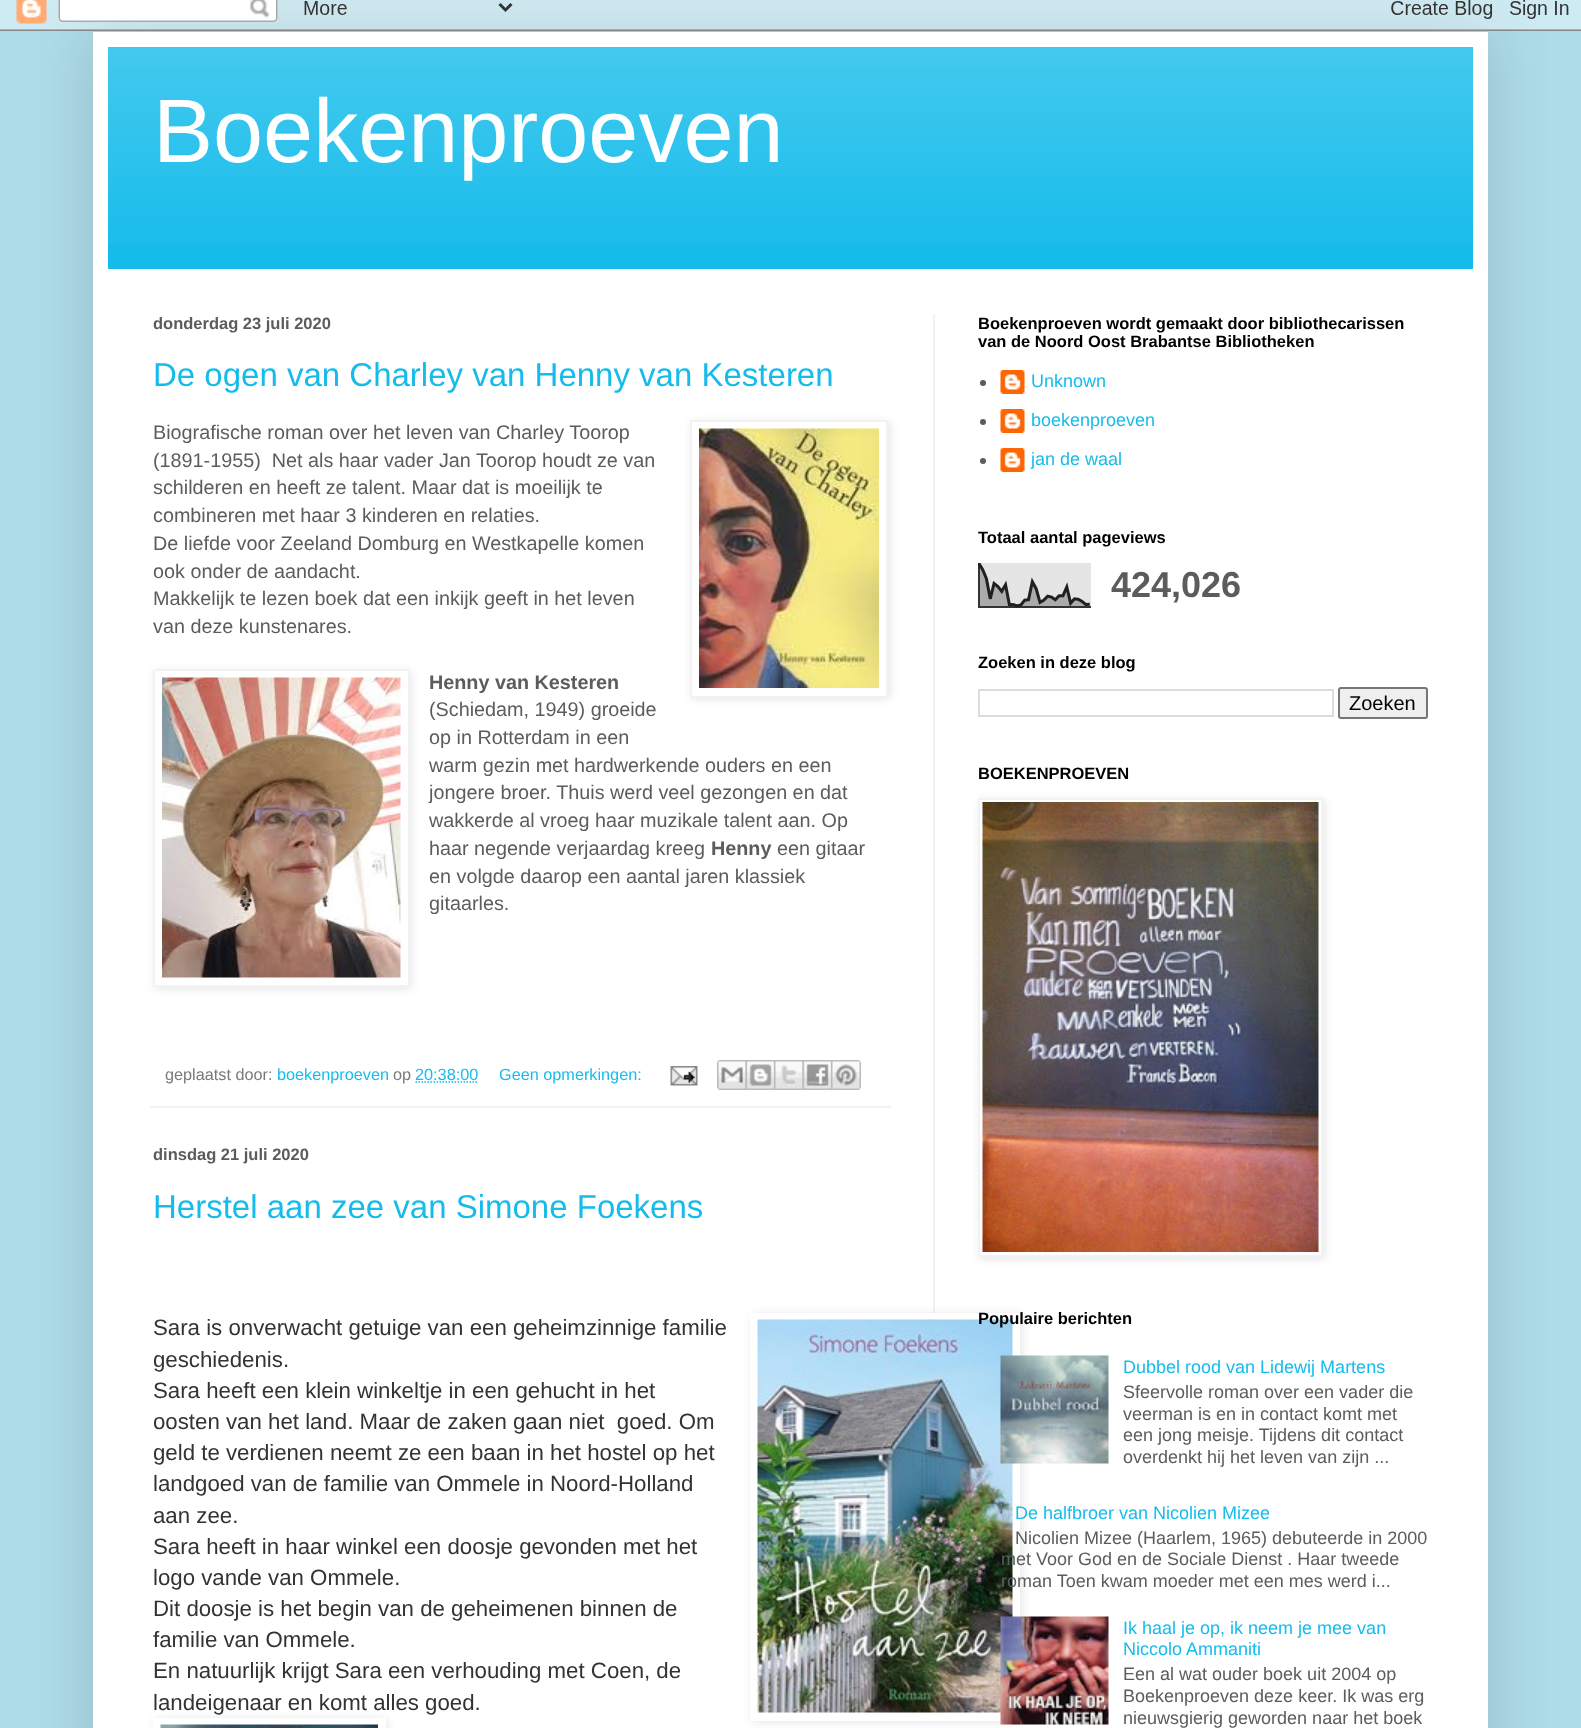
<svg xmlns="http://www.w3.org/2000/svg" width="1581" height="1728">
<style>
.a{font:90px Liberation Sans;fill:#fff}
.b{font:bold 16.5px Liberation Sans;fill:#5c5c5c}
.c{font:33px Liberation Sans;fill:#15bceb}
.d{font:19.8px Liberation Sans;fill:#5c5c5c}
.e{font:bold 19.8px Liberation Sans;fill:#5c5c5c}
.f{font:16.25px Liberation Sans;fill:#7a7a7a}
.g{font:16.25px Liberation Sans;fill:#15bceb}
.h{font:22.25px Liberation Sans;fill:#333}
.i{font:bold 16.5px Liberation Sans;fill:#000}
.j{font:18px Liberation Sans;fill:#15bceb}
.k{font:bold 36px Liberation Sans;fill:#5c5c5c}
.l{font:20px Liberation Sans;fill:#000}
.m{font:18px Liberation Sans;fill:#5c5c5c}
</style>
<defs>
<clipPath id="clip1"><path d="M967 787h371v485h-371zm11 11h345v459h-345z" clip-rule="evenodd"/></clipPath>
</defs>
<rect width="100%" height="100%" fill="#aedce9"/>
<path fill="#00000026" filter="blur(30px)" d="M93 32h1395v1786H93z"/>
<image href="1.png" x="0" y="0" width="1581" height="31"/>
<path fill="#fff" d="M93 32h1395v1696H93z"/>
<path fill="#15bceb" d="M108 47h1365v222H108z"/>
<image href="2.png" x="108" y="47" width="1365" height="198"/>
<path fill="#f2f2f2" d="M933 314h2v999H933z"/>
<path fill="#0000001a" filter="blur(4px)" d="M692 422h198v277H692z"/>
<path fill="#fff" stroke="#f2f2f2" stroke-width="2" d="M691 421h196v276H691z"/>
<image href="3.png" x="699" y="428" width="180" height="260"/>
<path fill="#0000001a" filter="blur(4px)" d="M155 671h256v318H155z"/>
<path fill="#fff" stroke="#f2f2f2" stroke-width="2" d="M154 670h255v316H154z"/>
<image href="4.png" x="162" y="677" width="239" height="301"/>
<path fill="#f2f2f2" d="M150 1106h741v2H150z"/>
<path fill="none" stroke="#15bceb" stroke-width="1.5" stroke-dasharray="1.5 1.5" d="M415.5 1082h63"/>
<image href="5.png" x="670" y="1066" width="28" height="20"/>
<image href="6.png" x="717" y="1060" width="29" height="30"/>
<image href="7.png" x="745" y="1060" width="29" height="30"/>
<image href="8.png" x="774" y="1060" width="29" height="30"/>
<image href="9.png" x="802" y="1060" width="29" height="30"/>
<image href="10.png" x="831" y="1060" width="30" height="30"/>
<path fill="#0000001a" filter="blur(4px)" d="M752 1314h270v408H752z"/>
<path fill="#fff" d="M750 1313h270v408H750z"/>
<image href="11.png" x="757" y="1319" width="256" height="394"/>
<path fill="#0000001a" filter="blur(4px)" d="M155 1719h232v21H155z"/>
<path fill="#fff" d="M153 1718h233v10H153z"/>
<image href="12.png" x="160" y="1724" width="218" height="4"/>
<circle fill="#5c5c5c" cx="983" cy="383" r="3"/>
<image href="13.png" x="1000" y="370" width="25" height="24"/>
<circle fill="#5c5c5c" cx="983" cy="422" r="3"/>
<image href="13.png" x="1000" y="409" width="25" height="24"/>
<circle fill="#5c5c5c" cx="983" cy="461" r="3"/>
<image href="13.png" x="1000" y="448" width="25" height="24"/>
<image href="14.png" x="978" y="563" width="113" height="45"/>
<path fill="none" stroke="#ddd" stroke-width="2" d="M979 690h354v26H979z"/>
<rect fill="#efefef" stroke="#767676" stroke-width="2" x="1339" y="688" width="88" height="30" rx="2"/>
<g clip-path="url(#clip1)">
<path fill="#0000001a" filter="blur(4px)" d="M980 800h345v459H980z"/>
</g>
<path fill="none" stroke="#f2f2f2" stroke-width="2" d="M979 799h343v457H979z"/>
<image href="15.png" x="982" y="802" width="337" height="450"/>
<image href="16.png" x="1000" y="1355" width="109" height="109"/>
<image href="17.png" x="1000" y="1616" width="109" height="109"/>
<text class="a" x="153" y="162">Boekenproeven</text>
<text class="b" x="153" y="329">donderdag 23 juli 2020</text>
<text class="c" x="153" y="386">De ogen van Charley van Henny van Kesteren</text>
<text class="d" x="153" y="439">Biografische roman over het leven van Charley Toorop</text>
<text class="d" xml:space="preserve" x="153" y="467">(1891-1955)  Net als haar vader Jan Toorop houdt ze van</text>
<text class="d" x="153" y="494">schilderen en heeft ze talent. Maar dat is moeilijk te</text>
<text class="d" x="153" y="522">combineren met haar 3 kinderen en relaties.</text>
<text class="d" x="153" y="550">De liefde voor Zeeland Domburg en Westkapelle komen</text>
<text class="d" x="153" y="578">ook onder de aandacht.</text>
<text class="d" x="153" y="605">Makkelijk te lezen boek dat een inkijk geeft in het leven</text>
<text class="d" x="153" y="633">van deze kunstenares.</text>
<text class="e" x="429" y="689">Henny van Kesteren</text>
<text class="d" x="429" y="716">(Schiedam, 1949) groeide</text>
<text class="d" x="429" y="744">op in Rotterdam in een</text>
<text class="d" x="429" y="772">warm gezin met hardwerkende ouders en een</text>
<text class="d" x="429" y="799">jongere broer. Thuis werd veel gezongen en</text>
<text class="d" x="820" y="799">dat</text>
<text class="d" x="429" y="827">wakkerde al vroeg haar muzikale talent aan. Op</text>
<text class="d" x="429" y="855">haar negende verjaardag kreeg</text>
<text class="e" x="711" y="855">Henny</text>
<text class="d" x="777" y="855">een gitaar</text>
<text class="d" x="429" y="883">en volgde daarop een aantal jaren klassiek</text>
<text class="d" x="429" y="910">gitaarles.</text>
<text class="f" x="165" y="1080">geplaatst door:</text>
<text class="g" x="277" y="1080">boekenproeven</text>
<text class="f" x="393" y="1080">op</text>
<text class="g" x="415" y="1080">20:38:00</text>
<text class="g" x="499" y="1080">Geen opmerkingen:</text>
<text class="b" x="153" y="1160">dinsdag 21 juli 2020</text>
<text class="c" x="153" y="1218">Herstel aan zee van Simone Foekens</text>
<text class="h" x="153" y="1335">Sara is onverwacht getuige van een geheimzinnige familie</text>
<text class="h" x="153" y="1367">geschiedenis.</text>
<text class="h" x="153" y="1398">Sara heeft een klein winkeltje in een gehucht in het</text>
<text class="h" xml:space="preserve" x="153" y="1429">oosten van het land. Maar de zaken gaan niet  goed. Om</text>
<text class="h" x="153" y="1460">geld te verdienen neemt ze een baan in het hostel op het</text>
<text class="h" x="153" y="1491">landgoed van de familie van Ommele in Noord-Holland</text>
<text class="h" x="153" y="1523">aan zee.</text>
<text class="h" x="153" y="1554">Sara heeft in haar winkel een doosje gevonden met het</text>
<text class="h" x="153" y="1585">logo vande van Ommele.</text>
<text class="h" x="153" y="1616">Dit doosje is het begin van de geheimenen binnen de</text>
<text class="h" x="153" y="1647">familie van Ommele.</text>
<text class="h" x="153" y="1678">En natuurlijk krijgt Sara een verhouding met Coen, de</text>
<text class="h" x="153" y="1710">landeigenaar en komt alles goed.</text>
<text class="i" x="978" y="329">Boekenproeven wordt gemaakt door bibliothecarissen</text>
<text class="i" x="978" y="347">van de Noord Oost Brabantse Bibliotheken</text>
<text class="j" x="1031" y="387">Unknown</text>
<text class="j" x="1031" y="426">boekenproeven</text>
<text class="j" x="1031" y="465">jan de waal</text>
<text class="i" x="978" y="543">Totaal aantal pageviews</text>
<text class="k" x="1111" y="597">424,026</text>
<text class="i" x="978" y="668">Zoeken in deze blog</text>
<text class="l" x="1349" y="710">Zoeken</text>
<text class="i" x="978" y="779">BOEKENPROEVEN</text>
<text class="i" x="978" y="1324">Populaire berichten</text>
<text class="j" x="1123" y="1373">Dubbel rood van Lidewij Martens</text>
<text class="m" x="1123" y="1398">Sfeervolle roman over een vader die</text>
<text class="m" x="1123" y="1420">veerman is en in contact komt met</text>
<text class="m" x="1123" y="1441">een jong meisje. Tijdens dit contact</text>
<text class="m" x="1123" y="1463">overdenkt hij het leven van zijn ...</text>
<text class="j" x="1015" y="1519">De halfbroer van Nicolien Mizee</text>
<text class="m" x="1015" y="1544">Nicolien Mizee (Haarlem, 1965) debuteerde in 2000</text>
<text class="m" x="1001" y="1565">met Voor God en de Sociale Dienst . Haar tweede</text>
<text class="m" x="1001" y="1587">roman Toen kwam moeder met een mes werd i...</text>
<text class="j" x="1123" y="1634">Ik haal je op, ik neem je mee van</text>
<text class="j" x="1123" y="1655">Niccolo Ammaniti</text>
<text class="m" x="1123" y="1680">Een al wat ouder boek uit 2004 op</text>
<text class="m" x="1123" y="1702">Boekenproeven deze keer. Ik was erg</text>
<text class="m" x="1123" y="1724">nieuwsgierig geworden naar het boek</text>
</svg>
